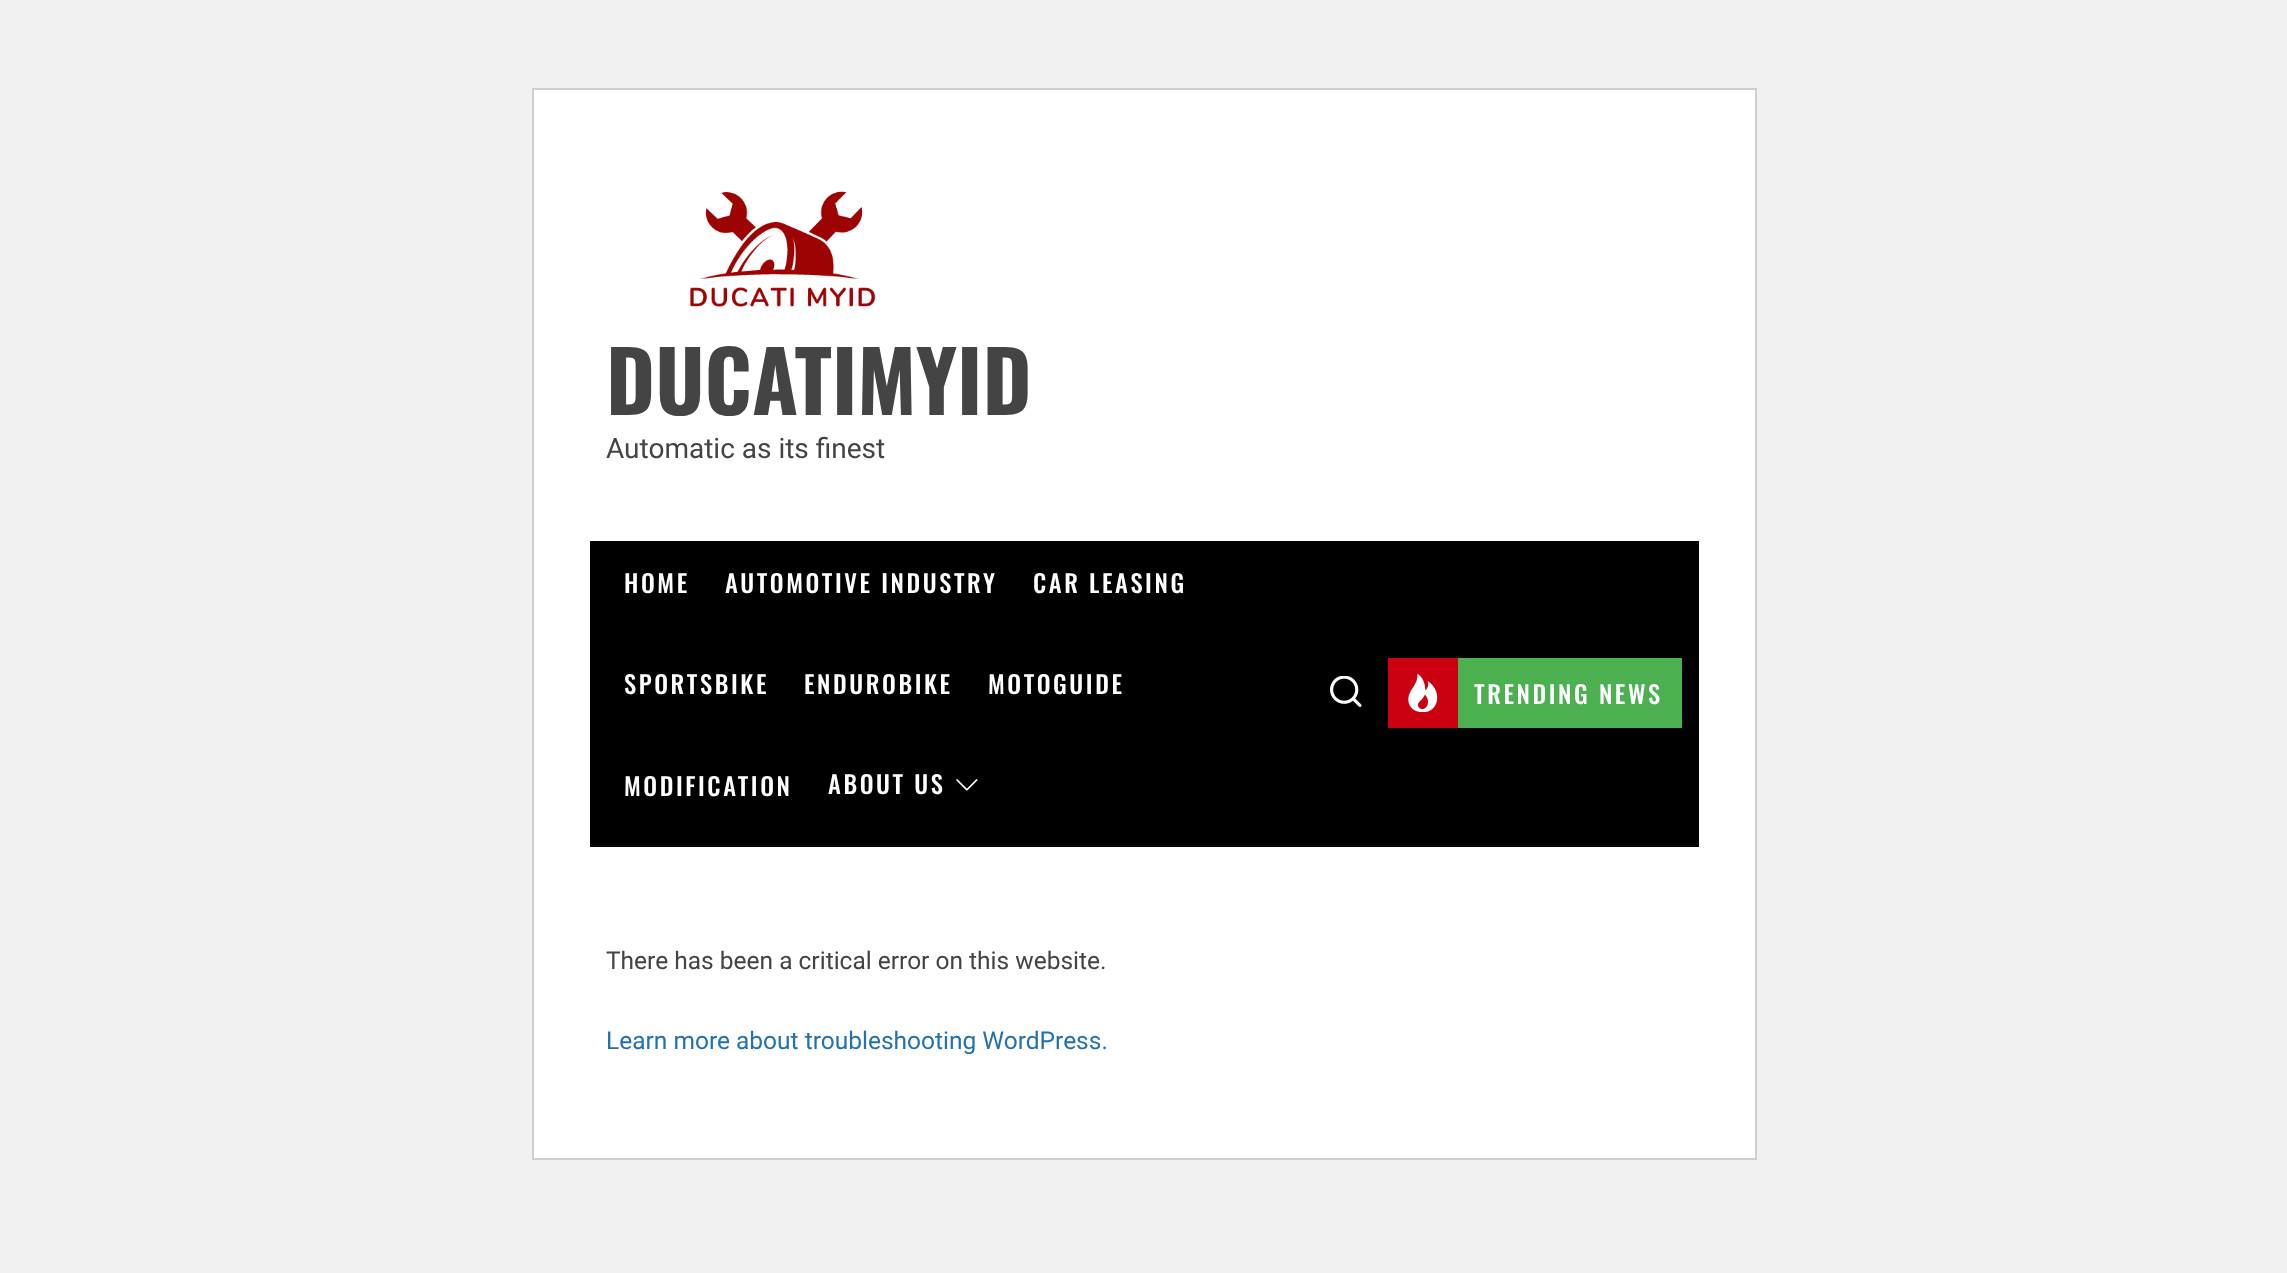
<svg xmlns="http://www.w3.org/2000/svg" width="2287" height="1273">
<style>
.a{font:bold 84px Oswald;fill:#444}
.b{font:28px Roboto;fill:#444}
.c{font:500 24.5px Oswald;letter-spacing:2.6px;fill:#fff}
.d{font:24.5px Roboto;fill:#444}
.e{font:24.5px Roboto;fill:#2271b1}
</style>
<rect width="100%" height="100%" fill="#f1f1f1"/>
<path fill="#fff" stroke="#ccd0d4" stroke-width="2" d="M533 89h1223v1070H533z"/>
<image href="1.png" x="690" y="191" width="186" height="116"/>
<path fill="#000" d="M590 541h1109v306H590z"/>
<image href="2.png" x="956" y="779" width="22" height="12"/>
<image href="3.png" x="1330" y="676" width="32" height="31"/>
<path fill="#cc0010" d="M1388 658h70v70H1388z"/>
<image href="4.png" x="1408" y="674" width="30" height="38"/>
<path fill="#4caf50" d="M1458 658h224v70H1458z"/>
<text class="a" x="606" y="415">DUCATIMYID</text>
<text class="b" x="606" y="458">Automatic as its finest</text>
<text class="c" x="624" y="593">HOME</text>
<text class="c" x="725" y="593">AUTOMOTIVE INDUSTRY</text>
<text class="c" x="1033" y="593">CAR LEASING</text>
<text class="c" x="624" y="694">SPORTSBIKE</text>
<text class="c" x="804" y="694">ENDUROBIKE</text>
<text class="c" x="988" y="694">MOTOGUIDE</text>
<text class="c" x="624" y="796">MODIFICATION</text>
<text class="c" x="828" y="794">ABOUT US</text>
<text class="c" x="1474" y="704">TRENDING NEWS</text>
<text class="d" x="606" y="969">There has been a critical error on this website.</text>
<text class="e" x="606" y="1049">Learn more about troubleshooting WordPress.</text>
</svg>
